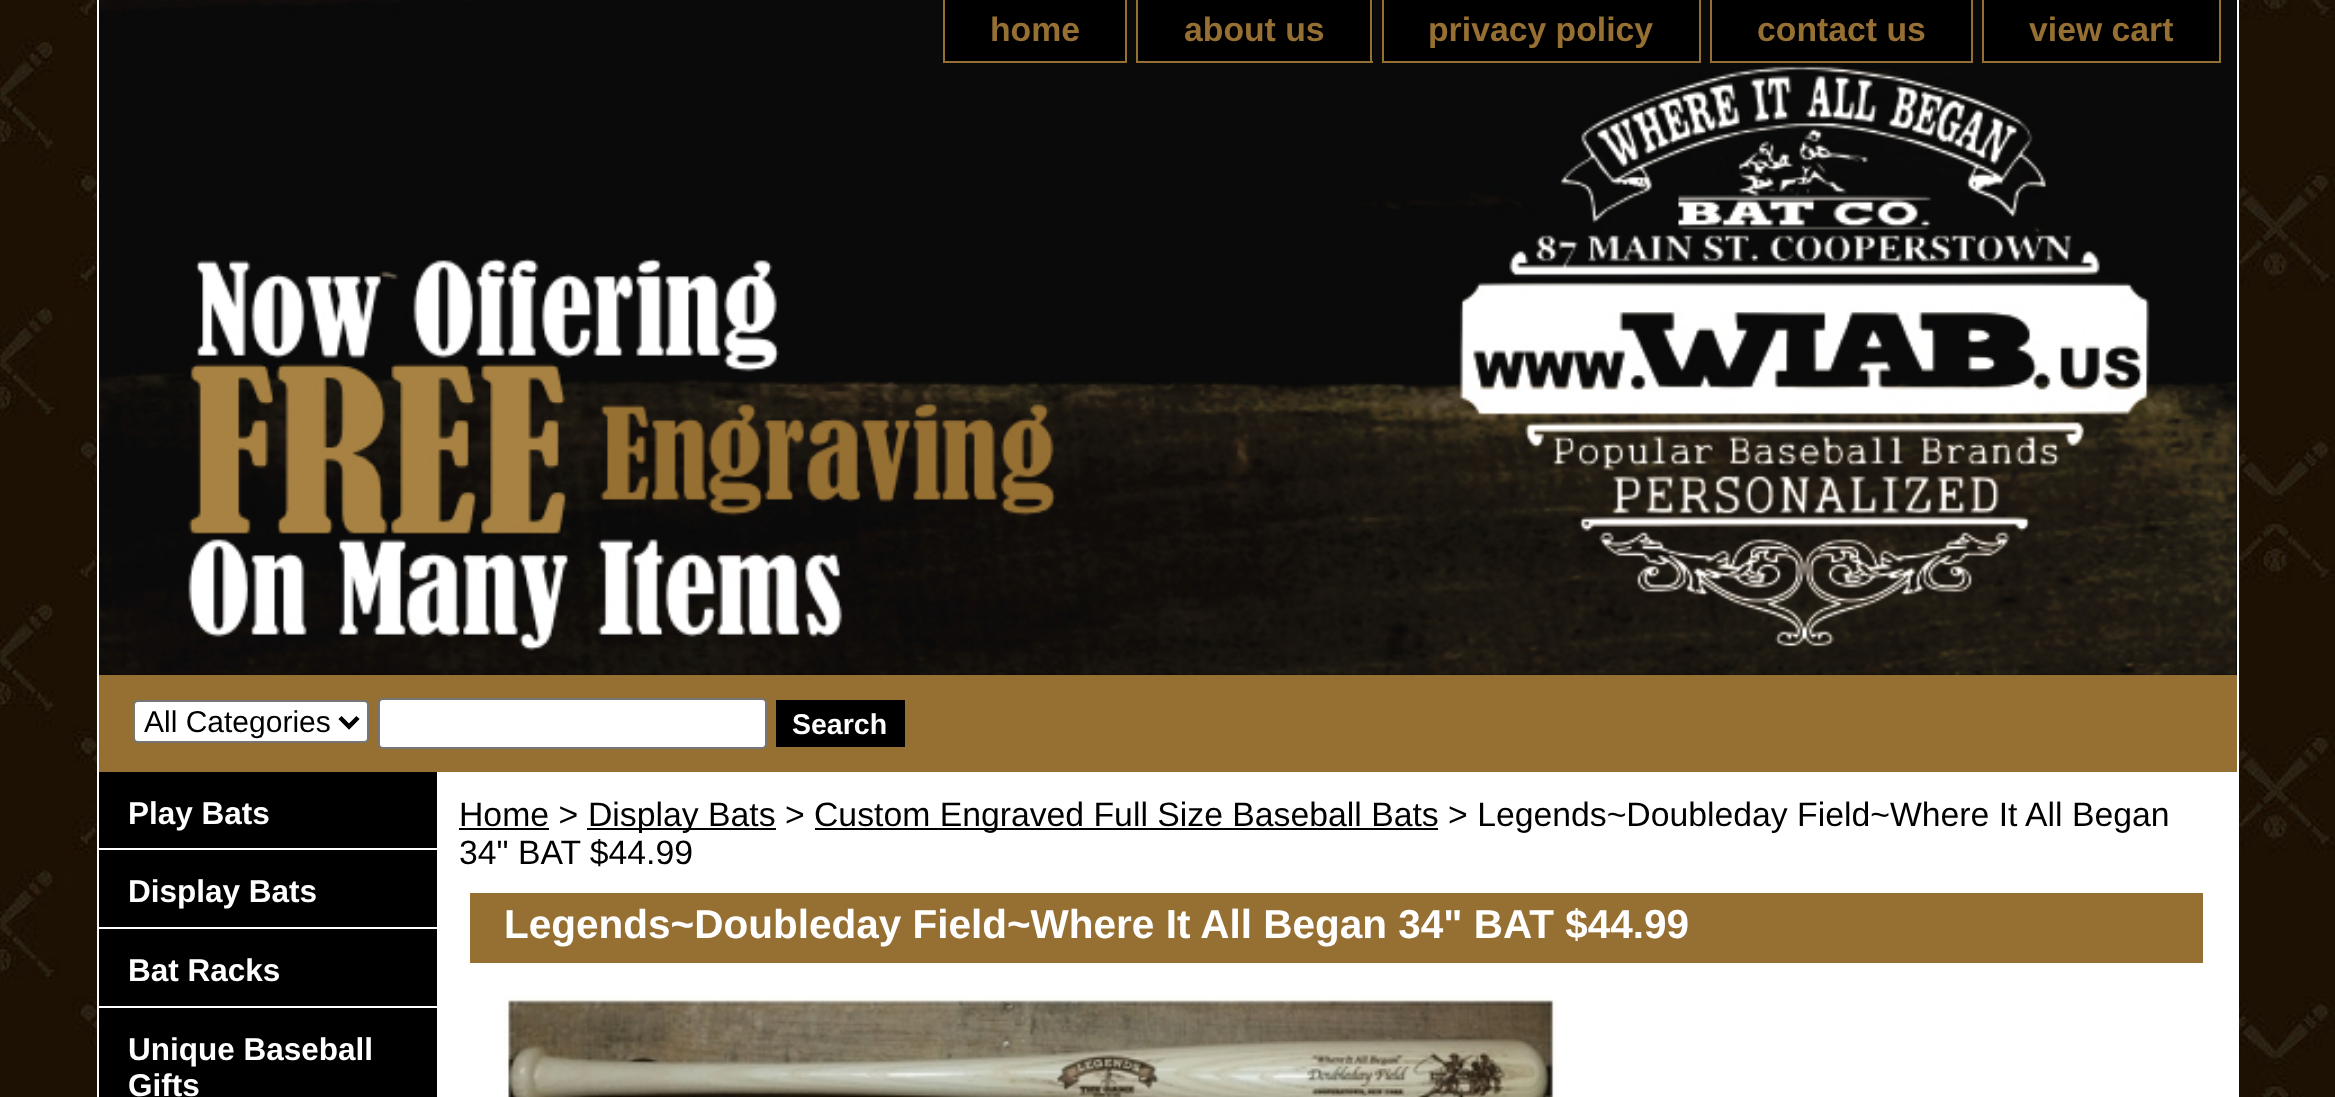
<svg xmlns="http://www.w3.org/2000/svg" width="2335" height="1097">
<style>
.a{font:bold 33.75px Liberation Sans;fill:#966f33}
.b{font:30px Liberation Sans;fill:#000}
.c{font:bold 28.5px Liberation Sans;fill:#fff}
.d{font:bold 31.5px Liberation Sans;fill:#fff}
.e{font:33.75px Liberation Sans;fill:#000}
.f{font:bold 40.5px Liberation Sans;fill:#fff}
</style>
<rect width="100%" height="100%" fill="#fff"/>
<image href="1.png" x="0" y="0" width="2335" height="1097"/>
<path fill="#fff" d="M97 0h2142v1097H97z"/>
<path fill="#000" d="M99 0h2138v675H99z"/>
<image href="2.png" x="99" y="0" width="2138" height="675"/>
<path fill="#000" d="M945 0h180v61H945z"/>
<path fill="#966f33" d="M1125 0h2v63H1125z"/>
<path fill="#966f33" d="M943 61h184v2H943z"/>
<path fill="#966f33" d="M943 0h2v63H943z"/>
<path fill="#000" d="M1138 0h235v61H1138z"/>
<path fill="#966f33" d="M1370 0h2v63H1370z"/>
<path fill="#966f33" d="M1136 61h237v2H1136z"/>
<path fill="#966f33" d="M1136 0h2v63H1136z"/>
<path fill="#000" d="M1384 0h315v61H1384z"/>
<path fill="#966f33" d="M1699 0h2v63H1699z"/>
<path fill="#966f33" d="M1382 61h319v2H1382z"/>
<path fill="#966f33" d="M1382 0h2v63H1382z"/>
<path fill="#000" d="M1712 0h259v61H1712z"/>
<path fill="#966f33" d="M1971 0h2v63H1971z"/>
<path fill="#966f33" d="M1710 61h263v2H1710z"/>
<path fill="#966f33" d="M1710 0h2v63H1710z"/>
<path fill="#000" d="M1984 0h235v61H1984z"/>
<path fill="#966f33" d="M2219 0h2v63H2219z"/>
<path fill="#966f33" d="M1982 61h239v2H1982z"/>
<path fill="#966f33" d="M1982 0h2v63H1982z"/>
<path fill="#966f33" d="M99 675h2138v97H99z"/>
<rect fill="#fff" stroke="#767676" stroke-width="2" x="134" y="701" width="234" height="41" rx="4"/>
<path fill="none" stroke="#000" stroke-width="4.5" d="M340 717.5l9 9l9-9"/>
<rect fill="#fff" stroke="#767676" stroke-width="2" x="379" y="699" width="387" height="49" rx="4"/>
<path fill="#000" d="M776 700h129v47H776z"/>
<path fill="#000" d="M99 772h338v325H99z"/>
<path fill="#fff" d="M99 848h338v2H99z"/>
<path fill="#fff" d="M99 927h338v2H99z"/>
<path fill="#fff" d="M99 1006h338v2H99z"/>
<path fill="#000" d="M459 828h90v2H459z"/>
<path fill="#000" d="M587 828h189v2H587z"/>
<path fill="#000" d="M815 828h623v2H815z"/>
<path fill="#966f33" d="M470 893h1733v70H470z"/>
<image href="3.png" x="504" y="996" width="1053" height="101"/>
<text class="a" x="990" y="41">home</text>
<text class="a" x="1184" y="41">about us</text>
<text class="a" x="1428" y="41">privacy policy</text>
<text class="a" x="1757" y="41">contact us</text>
<text class="a" x="2029" y="41">view cart</text>
<text class="b" x="144" y="732">All Categories</text>
<text class="c" x="792" y="734">Search</text>
<text class="d" x="128" y="824">Play Bats</text>
<text class="d" x="128" y="902">Display Bats</text>
<text class="d" x="128" y="981">Bat Racks</text>
<text class="d" x="128" y="1060">Unique Baseball</text>
<text class="d" x="128" y="1096">Gifts</text>
<text class="e" x="459" y="826">Home &gt;</text>
<text class="e" x="588" y="826">Display Bats &gt;</text>
<text class="e" x="814" y="826">Custom Engraved Full Size Baseball Bats &gt; Legends~Doubleday Field~Where It All Began</text>
<text class="e" x="459" y="864">34" BAT $44.99</text>
<text class="f" x="504" y="938">Legends~Doubleday Field~Where It All Began 34" BAT $44.99</text>
</svg>
